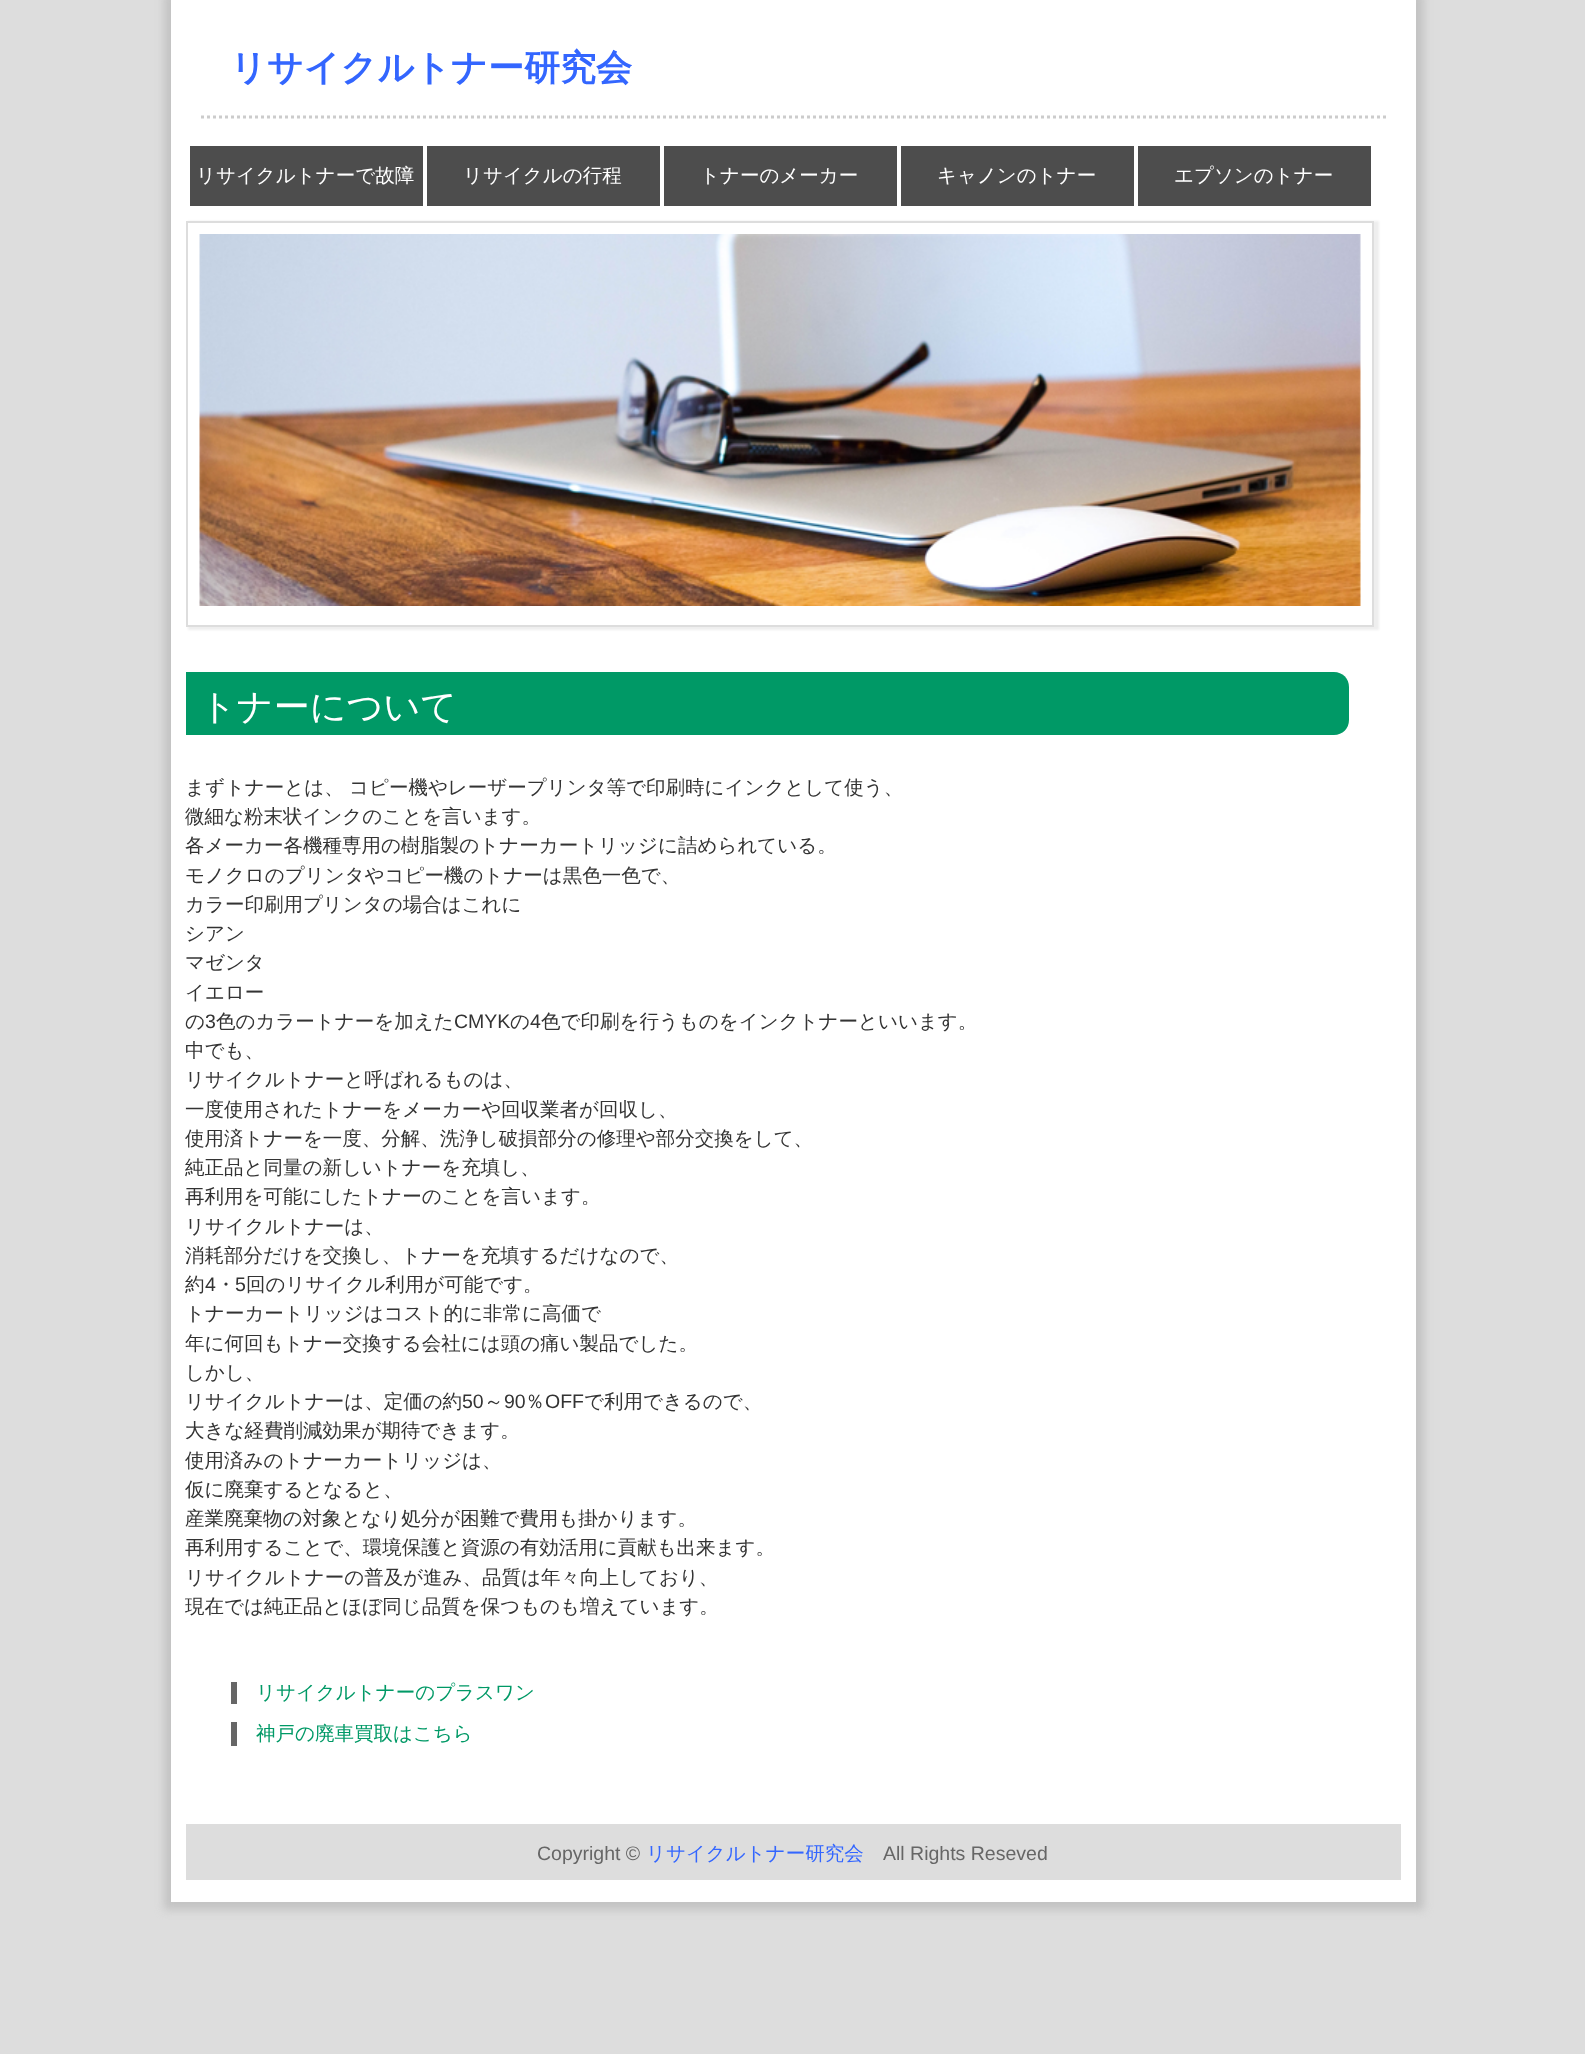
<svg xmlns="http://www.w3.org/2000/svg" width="1585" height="2054">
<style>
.a{font:bold 36px WenQuanYi Zen Hei;fill:#36f}
.b{font:500 19.5px WenQuanYi Zen Hei;fill:#fff}
.c{font:500 36px WenQuanYi Zen Hei;fill:#fff}
.d{font:500 19.5px WenQuanYi Zen Hei;fill:#333}
.e{font:19.5px Liberation Sans;fill:#333}
.f{font:500 19.5px WenQuanYi Zen Hei;fill:#096}
.g{font:19.5px Liberation Sans;fill:#666}
.h{font:500 19.5px WenQuanYi Zen Hei;fill:#36f}
</style>
<defs>
<clipPath id="clip1"><path d="M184 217h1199v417h-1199zm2 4h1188v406h-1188z" clip-rule="evenodd"/></clipPath>
</defs>
<rect width="100%" height="100%" fill="#ddd"/>
<path fill="#c3c3c3" filter="blur(4px)" d="M164 -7h1260v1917H164z"/>
<path fill="#fff" d="M171 0h1245v1902H171z"/>
<path fill="none" stroke="#ccc" stroke-width="3" stroke-dasharray="3 3" d="M201 117h1185"/>
<path fill="#4d4d4d" d="M190 146h1181v60H190z"/>
<path fill="#fff" d="M423 146h4v60H423z"/>
<path fill="#fff" d="M660 146h4v60H660z"/>
<path fill="#fff" d="M897 146h4v60H897z"/>
<path fill="#fff" d="M1134 146h4v60H1134z"/>
<g clip-path="url(#clip1)">
<path fill="#eee" filter="blur(1px)" d="M188 221h1191v409H188z"/>
</g>
<path fill="none" stroke="#ddd" stroke-width="2" d="M187 222h1186v404H187z"/>
<image href="1.png" x="199" y="234" width="1162" height="372"/>
<path fill="#096" d="M186 672h1148c8.5 0 15 6.5 15 15v33c0 8.5-6.5 15-15 15h-1148z"/>
<path fill="#666" d="M231 1682h6v22H231z"/>
<path fill="#666" d="M231 1722h6v24H231z"/>
<path fill="#ddd" d="M186 1824h1215v56H186z"/>
<text class="a" x="230" y="80">リサイクルトナー研究会</text>
<text class="b" x="196" y="182">リサイクルトナーで故障</text>
<text class="b" x="463" y="182">リサイクルの行程</text>
<text class="b" x="700" y="182">トナーのメーカー</text>
<text class="b" x="937" y="182">キャノンのトナー</text>
<text class="b" x="1174" y="182">エプソンのトナー</text>
<text class="c" x="200" y="719">トナーについて</text>
<text class="d" x="185" y="794">まずトナーとは、</text>
<text class="d" x="349" y="794">コピー機やレーザープリンタ等で印刷時にインクとして使う、</text>
<text class="d" x="185" y="823">微細な粉末状インクのことを言います。</text>
<text class="d" x="185" y="852">各メーカー各機種専用の樹脂製のトナーカートリッジに詰められている。</text>
<text class="d" x="185" y="882">モノクロのプリンタやコピー機のトナーは黒色一色で、</text>
<text class="d" x="185" y="911">カラー印刷用プリンタの場合はこれに</text>
<text class="d" x="185" y="940">シアン</text>
<text class="d" x="185" y="969">マゼンタ</text>
<text class="d" x="185" y="999">イエロー</text>
<text class="d" x="185" y="1028">の</text>
<text class="e" x="205" y="1028">3</text>
<text class="d" x="216" y="1028">色のカラートナーを加えた</text>
<text class="e" x="454" y="1028">CMYK</text>
<text class="d" x="510" y="1028">の</text>
<text class="e" x="530" y="1028">4</text>
<text class="d" x="541" y="1028">色で印刷を行うものをインクトナーといいます。</text>
<text class="d" x="185" y="1057">中でも、</text>
<text class="d" x="185" y="1086">リサイクルトナーと呼ばれるものは、</text>
<text class="d" x="185" y="1116">一度使用されたトナーをメーカーや回収業者が回収し、</text>
<text class="d" x="185" y="1145">使用済トナーを一度、分解、洗浄し破損部分の修理や部分交換をして、</text>
<text class="d" x="185" y="1174">純正品と同量の新しいトナーを充填し、</text>
<text class="d" x="185" y="1203">再利用を可能にしたトナーのことを言います。</text>
<text class="d" x="185" y="1233">リサイクルトナーは、</text>
<text class="d" x="185" y="1262">消耗部分だけを交換し、トナーを充填するだけなので、</text>
<text class="d" x="185" y="1291">約</text>
<text class="e" x="205" y="1291">4</text>
<text class="d" x="216" y="1291">・</text>
<text class="e" x="235" y="1291">5</text>
<text class="d" x="246" y="1291">回のリサイクル利用が可能です。</text>
<text class="d" x="185" y="1320">トナーカートリッジはコスト的に非常に高価で</text>
<text class="d" x="185" y="1350">年に何回もトナー交換する会社には頭の痛い製品でした。</text>
<text class="d" x="185" y="1379">しかし、</text>
<text class="d" x="185" y="1408">リサイクルトナーは、定価の約</text>
<text class="e" x="462" y="1408">50</text>
<text class="d" x="484" y="1408">～</text>
<text class="e" x="504" y="1408">90</text>
<text class="d" x="525" y="1408">％</text>
<text class="e" x="545" y="1408">OFF</text>
<text class="d" x="584" y="1408">で利用できるので、</text>
<text class="d" x="185" y="1437">大きな経費削減効果が期待できます。</text>
<text class="d" x="185" y="1467">使用済みのトナーカートリッジは、</text>
<text class="d" x="185" y="1496">仮に廃棄するとなると、</text>
<text class="d" x="185" y="1525">産業廃棄物の対象となり処分が困難で費用も掛かります。</text>
<text class="d" x="185" y="1554">再利用することで、環境保護と資源の有効活用に貢献も出来ます。</text>
<text class="d" x="185" y="1584">リサイクルトナーの普及が進み、品質は年々向上しており、</text>
<text class="d" x="185" y="1613">現在では純正品とほぼ同じ品質を保つものも増えています。</text>
<text class="f" x="256" y="1699">リサイクルトナーのプラスワン</text>
<text class="f" x="256" y="1740">神戸の廃車買取はこちら</text>
<text class="g" x="537" y="1860">Copyright ©</text>
<text class="h" x="646" y="1860">リサイクルトナー研究会</text>
<text class="g" x="883" y="1860">All Rights Reseved</text>
</svg>
